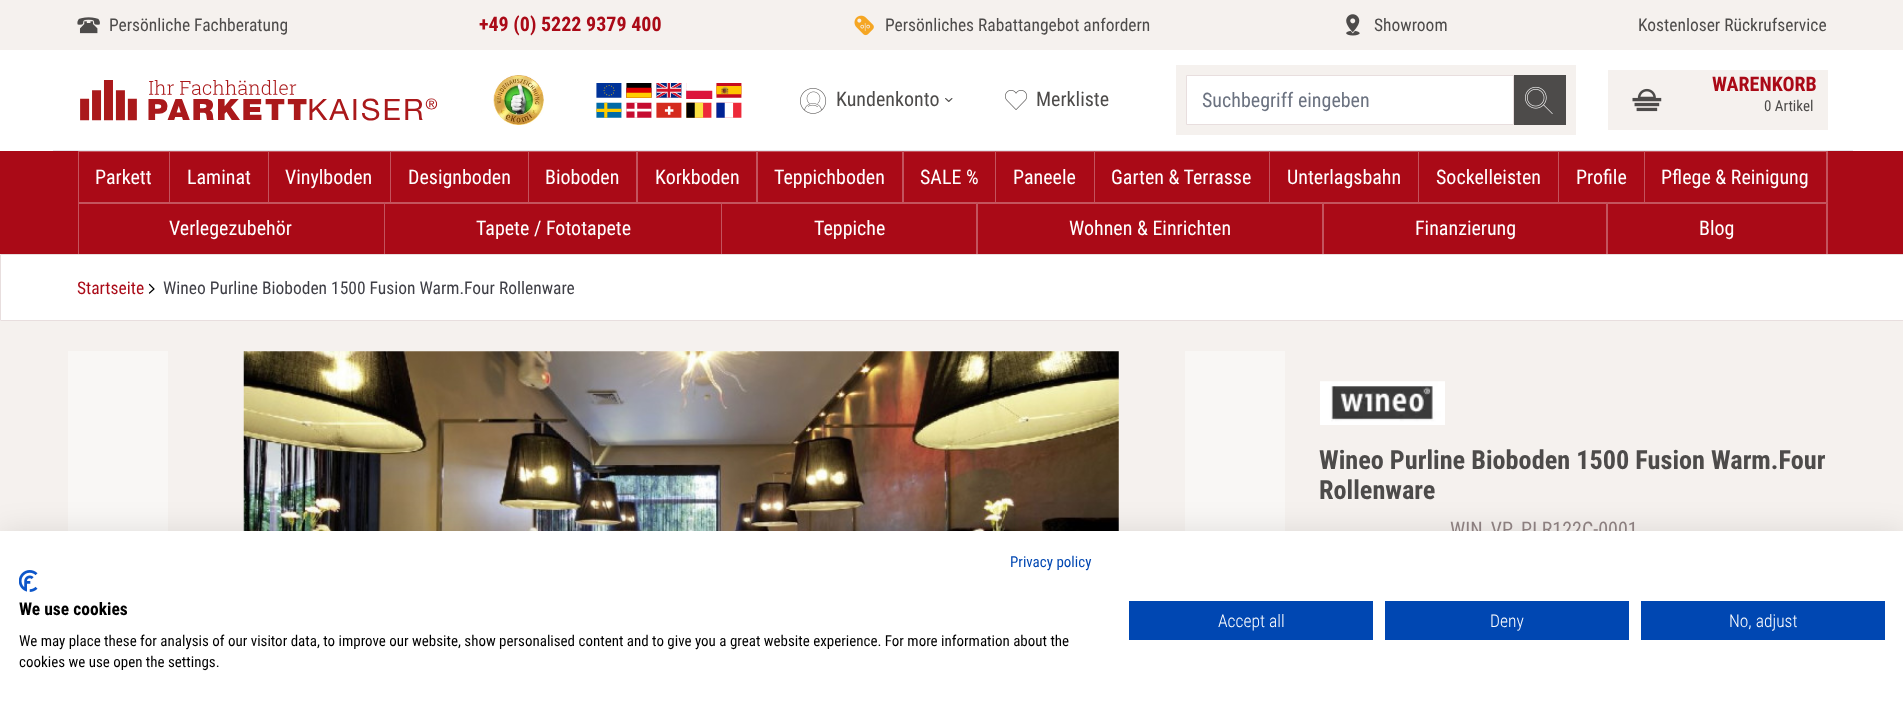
<svg xmlns="http://www.w3.org/2000/svg" width="1903" height="706">
<style>
.a{font:17.5px Roboto Condensed;fill:#4d4b4a}
.b{font:bold 20px Roboto Condensed;fill:#aa0a17}
.c{font:20px Roboto Condensed;fill:#4d4b4a}
.d{font:20px Roboto Condensed;fill:#6b7280}
.e{font:15px Roboto Condensed;fill:#4d4b4a}
.f{font:20px Roboto Condensed;fill:#fff}
.g{font:17.5px Roboto Condensed;fill:#aa0a17}
.h{font:17.5px Roboto Condensed;fill:#3f3f46}
.i{font:bold 26.25px Roboto Condensed;fill:#4d4b4a}
.j{font:20px Roboto Condensed;fill:#8c7f7f}
.k{font:15px Roboto Condensed;fill:#0047b2}
.l{font:bold 17.5px Roboto Condensed;fill:#000}
.m{font:15px Roboto Condensed;fill:#000}
.n{font:300 17.5px Roboto Condensed;fill:#fff}
</style>
<rect width="100%" height="100%" fill="#fff"/>
<path fill="#f5f1ee" d="M0 0h1903v50H0z"/>
<image href="1.png" x="77" y="17" width="23" height="17"/>
<image href="2.png" x="854" y="15" width="20" height="21"/>
<image href="3.png" x="1346" y="14" width="14" height="22"/>
<path fill="#e5e7eb" d="M53 150h1800v1H53z"/>
<image href="4.png" x="80" y="80" width="358" height="41"/>
<image href="5.png" x="493" y="75" width="51" height="50"/>
<image href="6.png" x="596" y="83" width="146" height="35"/>
<image href="7.png" x="800" y="88" width="27" height="26"/>
<image href="8.png" x="945" y="98" width="8" height="4"/>
<image href="9.png" x="1005" y="90" width="23" height="20"/>
<path fill="#f5f1ee" d="M1176 65h400v70H1176z"/>
<path fill="#fff" stroke="#e8dede" d="M1186.5 75.5h327v49H1186.5z"/>
<path fill="#4d4b4a" d="M1514 75h52v50H1514z"/>
<image href="10.png" x="1525" y="86" width="28" height="28"/>
<path fill="#f5f1ee" d="M1608 70h220v60H1608z"/>
<image href="11.png" x="1632" y="88" width="30" height="24"/>
<path fill="#aa0a17" d="M0 151h1903v103H0z"/>
<path fill="#c4545d" d="M78 151h1v103H78z"/>
<path fill="#c4545d" d="M79 151h91l-1 1h-90z"/>
<path fill="#ffffff4d" d="M170 151v51h-1v-50z"/>
<path fill="#c4545d" d="M170 151h99l-1 1h-98z"/>
<path fill="#ffffff4d" d="M269 151v51h-1v-50z"/>
<path fill="#c4545d" d="M269 151h122l-1 1h-121z"/>
<path fill="#ffffff4d" d="M391 151v51h-1v-50z"/>
<path fill="#c4545d" d="M391 151h138l-1 1h-137z"/>
<path fill="#ffffff4d" d="M529 151v51h-1v-50z"/>
<path fill="#c4545d" d="M529 151h109l-2 1h-107z"/>
<path fill="#ffffff4d" d="M638 151v51h-2v-50z"/>
<path fill="#c4545d" d="M638 151h120l-2 1h-118z"/>
<path fill="#ffffff4d" d="M758 151v51h-2v-50z"/>
<path fill="#c4545d" d="M758 151h146l-2 1h-144z"/>
<path fill="#ffffff4d" d="M904 151v51h-2v-50z"/>
<path fill="#c4545d" d="M904 151h92l-1 1h-91z"/>
<path fill="#ffffff4d" d="M996 151v51h-1v-50z"/>
<path fill="#c4545d" d="M996 151h99l-1 1h-98z"/>
<path fill="#ffffff4d" d="M1095 151v51h-1v-50z"/>
<path fill="#c4545d" d="M1095 151h175l-1 1h-174z"/>
<path fill="#ffffff4d" d="M1270 151v51h-1v-50z"/>
<path fill="#c4545d" d="M1270 151h149l-1 1h-148z"/>
<path fill="#ffffff4d" d="M1419 151v51h-1v-50z"/>
<path fill="#c4545d" d="M1419 151h140l-1 1h-139z"/>
<path fill="#ffffff4d" d="M1559 151v51h-1v-50z"/>
<path fill="#c4545d" d="M1559 151h86l-1 1h-85z"/>
<path fill="#ffffff4d" d="M1645 151v51h-1v-50z"/>
<path fill="#c4545d" d="M1645 151h183l-2 1h-181z"/>
<path fill="#ffffff4d" d="M1828 151v51h-2v-50z"/>
<path fill="#c4545d" d="M79 202h306l-1 2h-305z"/>
<path fill="#ffffff4d" d="M385 202v52h-1v-50z"/>
<path fill="#c4545d" d="M385 202h337l-1 2h-336z"/>
<path fill="#ffffff4d" d="M722 202v52h-1v-50z"/>
<path fill="#c4545d" d="M722 202h256l-2 2h-254z"/>
<path fill="#ffffff4d" d="M978 202v52h-2v-50z"/>
<path fill="#c4545d" d="M978 202h346l-2 2h-344z"/>
<path fill="#ffffff4d" d="M1324 202v52h-2v-50z"/>
<path fill="#c4545d" d="M1324 202h284l-2 2h-282z"/>
<path fill="#ffffff4d" d="M1608 202v52h-2v-50z"/>
<path fill="#c4545d" d="M1608 202h220l-2 2h-218z"/>
<path fill="#ffffff4d" d="M1828 202v52h-2v-50z"/>
<path fill="none" stroke="#e8dede" d="M0.5 254.5h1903v66H0.5z"/>
<path fill="none" stroke="#000" stroke-width="1.2" stroke-linecap="round" stroke-linejoin="round" d="M149.5 284.5l4.5 4.5l-4.5 4"/>
<path fill="#f5f1ee" d="M0 321h1903v210H0z"/>
<path fill="#f9f7f5" d="M68 351h100v180H68z"/>
<image href="12.png" x="243" y="351" width="876" height="180"/>
<path fill="#f9f7f5" d="M1185 351h100v180H1185z"/>
<image href="13.png" x="1320" y="381" width="125" height="44"/>
<path fill="#0000001a" filter="blur(15px)" d="M0 531h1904v175H0z"/>
<text class="a" x="109" y="31">Persönliche Fachberatung</text>
<text class="b" x="479" y="31">+49 (0) 5222 9379 400</text>
<text class="a" x="885" y="31">Persönliches Rabattangebot anfordern</text>
<text class="a" x="1374" y="31">Showroom</text>
<text class="a" x="1638" y="31">Kostenloser Rückrufservice</text>
<text class="c" x="836" y="106">Kundenkonto</text>
<text class="c" x="1036" y="106">Merkliste</text>
<text class="d" x="1202" y="107">Suchbegriff eingeben</text>
<text class="b" x="1712" y="91">WARENKORB</text>
<text class="e" x="1764" y="111">0 Artikel</text>
<text class="f" x="95" y="184">Parkett</text>
<text class="f" x="187" y="184">Laminat</text>
<text class="f" x="285" y="184">Vinylboden</text>
<text class="f" x="408" y="184">Designboden</text>
<text class="f" x="545" y="184">Bioboden</text>
<text class="f" x="655" y="184">Korkboden</text>
<text class="f" x="774" y="184">Teppichboden</text>
<text class="f" x="920" y="184">SALE %</text>
<text class="f" x="1013" y="184">Paneele</text>
<text class="f" x="1111" y="184">Garten &amp; Terrasse</text>
<text class="f" x="1287" y="184">Unterlagsbahn</text>
<text class="f" x="1436" y="184">Sockelleisten</text>
<text class="f" x="1576" y="184">Profile</text>
<text class="f" x="1661" y="184">Pflege &amp; Reinigung</text>
<text class="f" x="169" y="235">Verlegezubehör</text>
<text class="f" x="476" y="235">Tapete / Fototapete</text>
<text class="f" x="814" y="235">Teppiche</text>
<text class="f" x="1069" y="235">Wohnen &amp; Einrichten</text>
<text class="f" x="1415" y="235">Finanzierung</text>
<text class="f" x="1699" y="235">Blog</text>
<text class="g" x="77" y="294">Startseite</text>
<text class="h" x="163" y="294">Wineo Purline Bioboden 1500 Fusion Warm.Four Rollenware</text>
<text class="i" x="1319" y="469">Wineo Purline Bioboden 1500 Fusion Warm.Four</text>
<text class="i" x="1319" y="499">Rollenware</text>
<text class="j" x="1450" y="536">WIN_VP_PLR122C-0001</text>
<path fill="#fff" d="M0 531h1903v175H0z"/>
<text class="k" x="1010" y="567">Privacy policy</text>
<image href="14.png" x="19" y="570" width="19" height="22"/>
<text class="l" x="19" y="615">We use cookies</text>
<text class="m" x="19" y="646">We may place these for analysis of our visitor data, to improve our website, show personalised content and to give you a great website experience. For more information about the</text>
<text class="m" x="19" y="667">cookies we use open the settings.</text>
<path fill="#0047b2" d="M1129 601h244v39H1129z"/>
<text class="n" x="1218" y="627">Accept all</text>
<path fill="#0047b2" d="M1385 601h244v39H1385z"/>
<text class="n" x="1490" y="627">Deny</text>
<path fill="#0047b2" d="M1641 601h244v39H1641z"/>
<text class="n" x="1729" y="627">No, adjust</text>
</svg>
